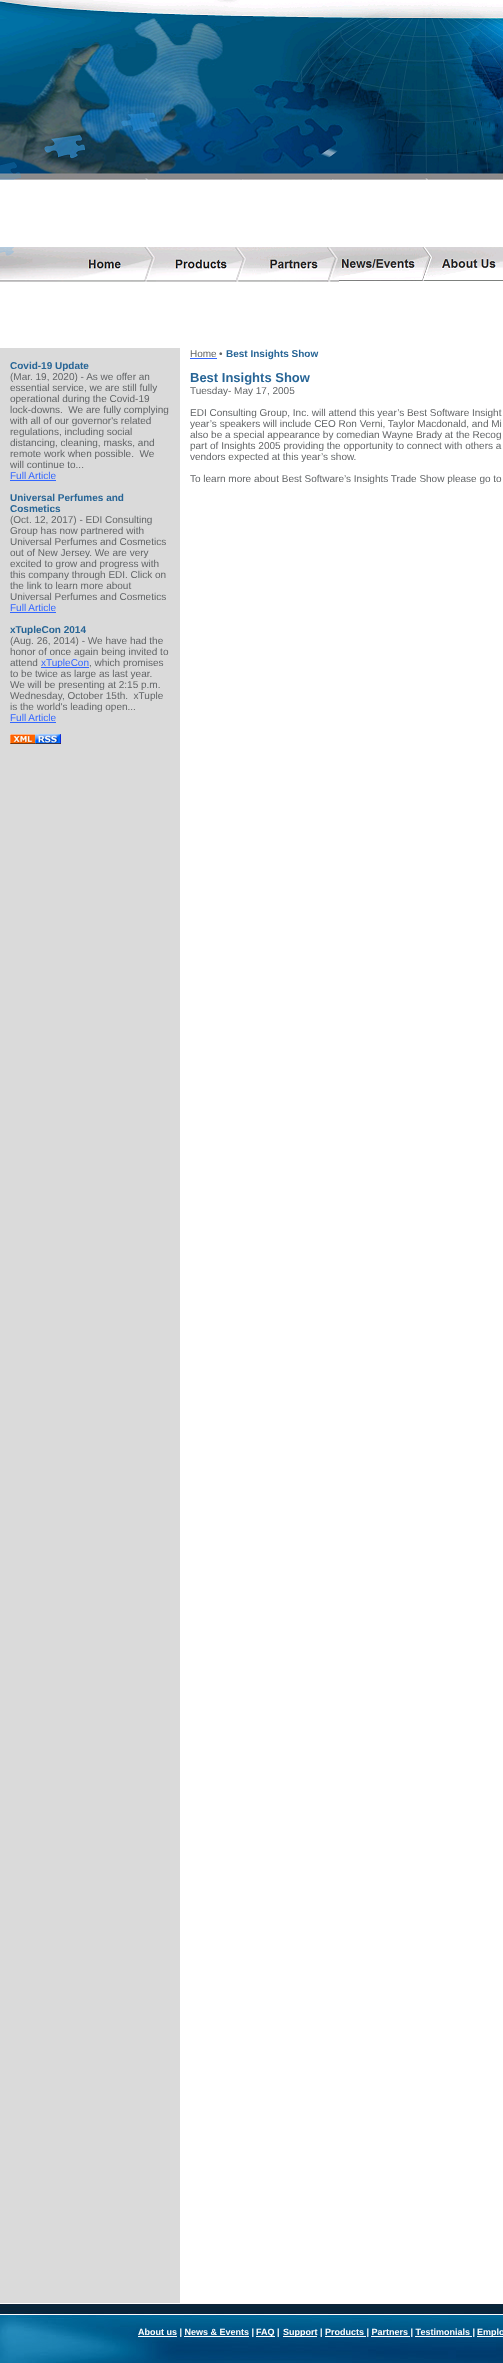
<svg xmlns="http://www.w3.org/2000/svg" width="503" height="2363">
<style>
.a{font:bold 10px Liberation Sans;fill:#276596}
.b{font:10px Liberation Sans;fill:#626567}
.c{font:10px Liberation Sans;fill:#36f}
.d{font:bold 13px Liberation Sans;fill:#276596}
.e{font:bold 9px Liberation Sans;fill:#fff}
</style>
<rect width="100%" height="100%" fill="#fff"/>
<image href="1.png" x="0" y="0" width="503" height="180"/>
<image href="2.png" x="0" y="247" width="156" height="35"/>
<image href="3.png" x="156" y="247" width="95" height="35"/>
<image href="4.png" x="251" y="247" width="88" height="35"/>
<image href="5.png" x="339" y="247" width="96" height="34"/>
<image href="6.png" x="435" y="247" width="68" height="34"/>
<path fill="#dadada" d="M0 348h180v1955H0z"/>
<path fill="#36f" d="M10 480h46v1H10z"/>
<path fill="#36f" d="M10 612h46v1H10z"/>
<path fill="#36f" d="M41 667h48v1H41z"/>
<path fill="#36f" d="M10 722h46v1H10z"/>
<image href="7.png" x="10" y="734" width="51" height="10"/>
<path fill="#36f" d="M190 358h27v1H190z"/>
<image href="8.png" x="0" y="2304" width="503" height="59"/>
<path fill="#fff" d="M138 2336h39v1H138z"/>
<path fill="#fff" d="M184 2336h65v1H184z"/>
<path fill="#fff" d="M256 2336h19v1H256z"/>
<path fill="#fff" d="M283 2336h34v1H283z"/>
<path fill="#fff" d="M325 2336h41v1H325z"/>
<path fill="#fff" d="M371 2336h39v1H371z"/>
<path fill="#fff" d="M415 2336h57v1H415z"/>
<path fill="#fff" d="M477 2336h26v1H477z"/>
<text class="a" x="10" y="369">Covid-19 Update</text>
<text class="b" x="10" y="380">(Mar. 19, 2020) - As we offer an</text>
<text class="b" x="10" y="391">essential service, we are still fully</text>
<text class="b" x="10" y="402">operational during the Covid-19</text>
<text class="b" xml:space="preserve" x="10" y="413">lock-downs.  We are fully complying</text>
<text class="b" x="10" y="424">with all of our governor's related</text>
<text class="b" x="10" y="435">regulations, including social</text>
<text class="b" x="10" y="446">distancing, cleaning, masks, and</text>
<text class="b" xml:space="preserve" x="10" y="457">remote work when possible.  We</text>
<text class="b" x="10" y="468">will continue to...</text>
<text class="c" x="10" y="479">Full Article</text>
<text class="a" x="10" y="501">Universal Perfumes and</text>
<text class="a" x="10" y="512">Cosmetics</text>
<text class="b" x="10" y="523">(Oct. 12, 2017) - EDI Consulting</text>
<text class="b" x="10" y="534">Group has now partnered with</text>
<text class="b" x="10" y="545">Universal Perfumes and Cosmetics</text>
<text class="b" x="10" y="556">out of New Jersey. We are very</text>
<text class="b" x="10" y="567">excited to grow and progress with</text>
<text class="b" x="10" y="578">this company through EDI. Click on</text>
<text class="b" x="10" y="589">the link to learn more about</text>
<text class="b" x="10" y="600">Universal Perfumes and Cosmetics</text>
<text class="c" x="10" y="611">Full Article</text>
<text class="a" x="10" y="633">xTupleCon 2014</text>
<text class="b" x="10" y="644">(Aug. 26, 2014) - We have had the</text>
<text class="b" x="10" y="655">honor of once again being invited to</text>
<text class="b" x="10" y="666">attend</text>
<text class="c" x="41" y="666">xTupleCon</text>
<text class="b" x="89" y="666">, which promises</text>
<text class="b" x="10" y="677">to be twice as large as last year.</text>
<text class="b" x="10" y="688">We will be presenting at 2:15 p.m.</text>
<text class="b" xml:space="preserve" x="10" y="699">Wednesday, October 15th.  xTuple</text>
<text class="b" x="10" y="710">is the world's leading open...</text>
<text class="c" x="10" y="721">Full Article</text>
<text class="b" x="190" y="357">Home</text>
<text class="b" x="219" y="357">•</text>
<text class="a" x="226" y="357">Best Insights Show</text>
<text class="d" x="190" y="382">Best Insights Show</text>
<text class="b" x="190" y="394">Tuesday- May 17, 2005</text>
<text class="b" x="190" y="416">EDI Consulting Group, Inc. will attend this year’s Best Software Insight</text>
<text class="b" x="190" y="427">year’s speakers will include CEO Ron Verni, Taylor Macdonald, and Mi</text>
<text class="b" x="190" y="438">also be a special appearance by comedian Wayne Brady at the Recog</text>
<text class="b" x="190" y="449">part of Insights 2005 providing the opportunity to connect with others a</text>
<text class="b" x="190" y="460">vendors expected at this year’s show.</text>
<text class="b" x="190" y="482">To learn more about Best Software’s Insights Trade Show please go to</text>
<text class="e" x="138" y="2335">About us | News &amp; Events |</text>
<text class="e" x="256" y="2335">FAQ |</text>
<text class="e" x="283" y="2335">Support | Products | Partners | Testimonials |</text>
<text class="e" x="477" y="2335">Emplo</text>
</svg>
